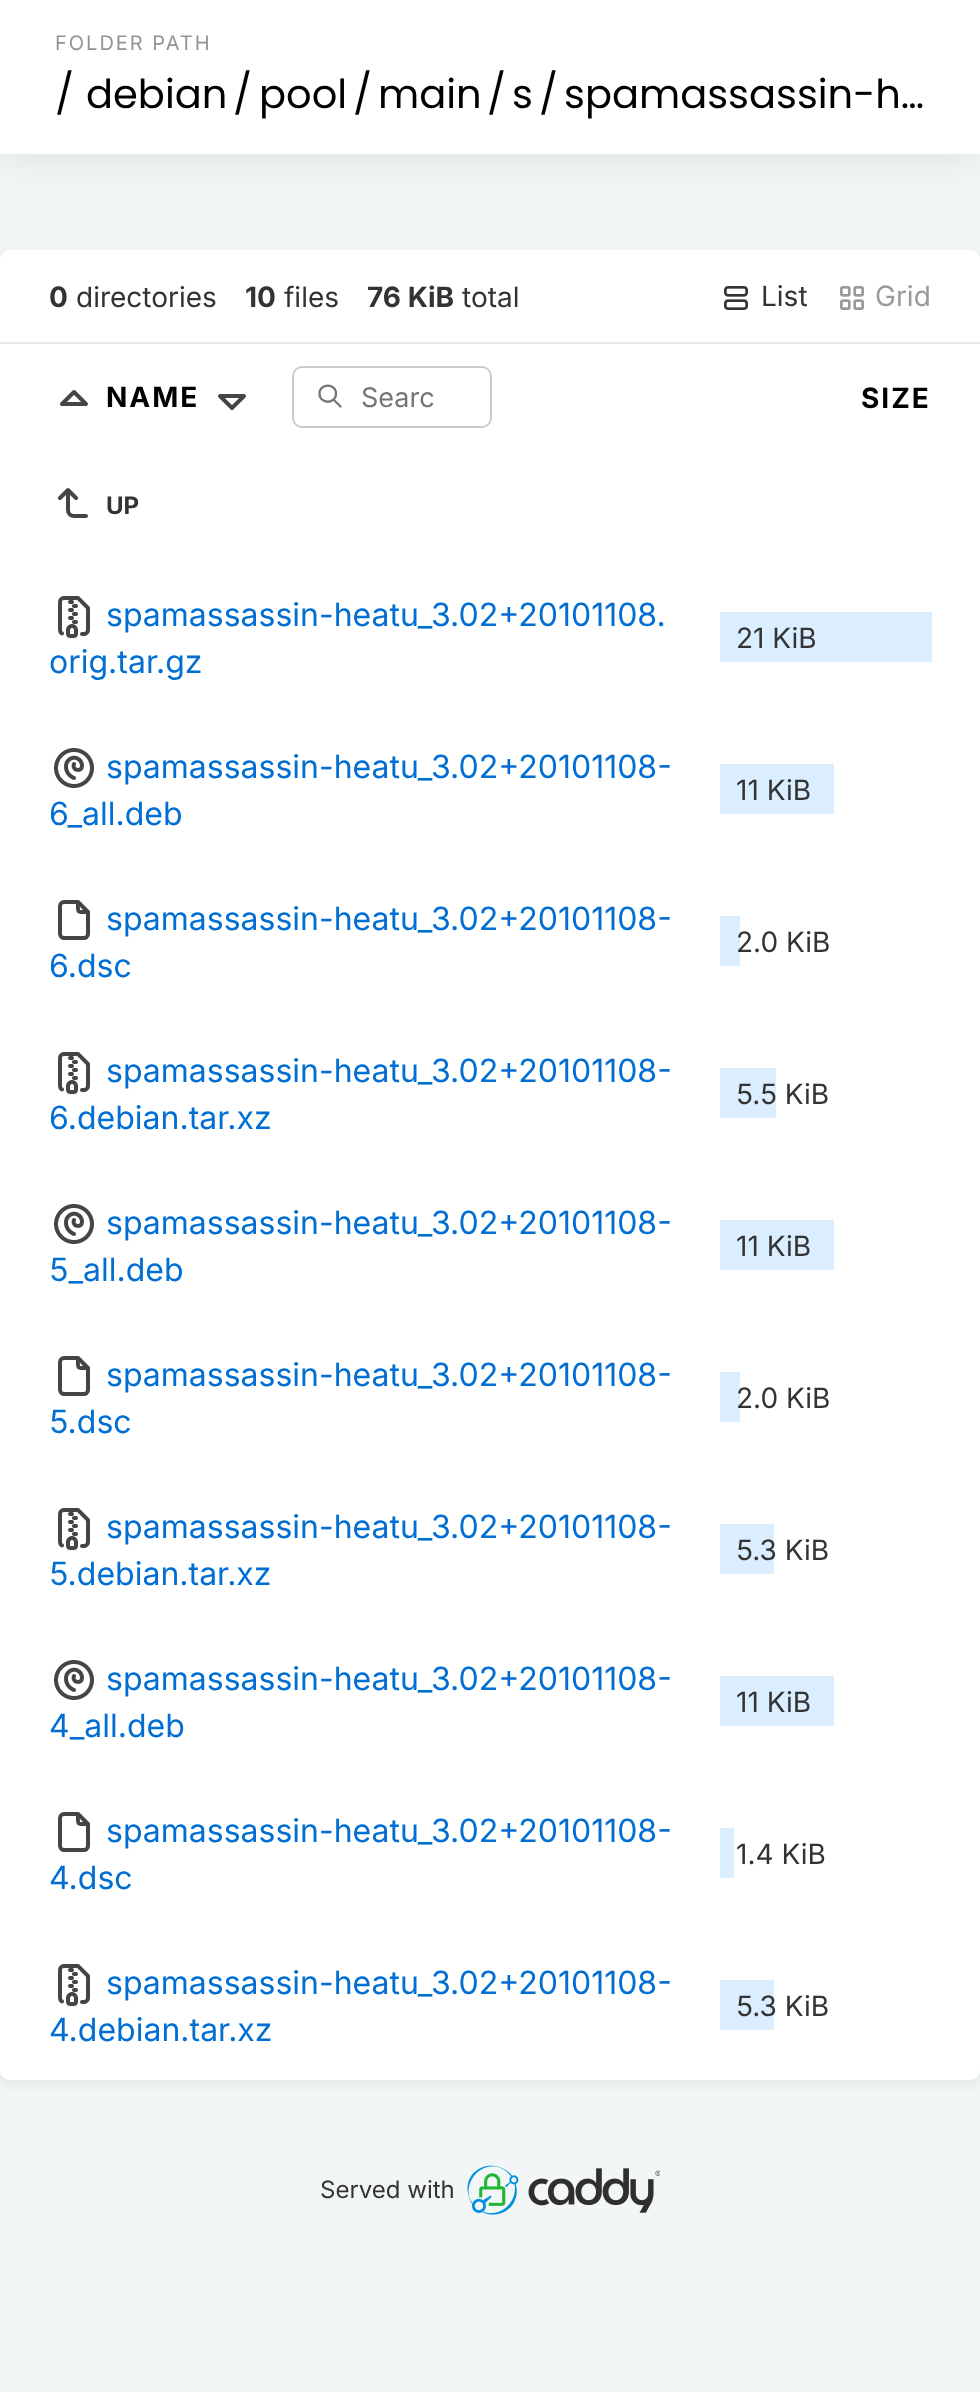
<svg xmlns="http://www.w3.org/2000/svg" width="980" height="2392">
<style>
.a{font:20px Inter;letter-spacing:2px;fill:#939393}
.b{font:40px Poppins;fill:#000}
.c{font:bold 28px Inter;fill:#333}
.d{font:28px Inter;fill:#333}
.e{font:28px Inter;fill:#9a9a9a}
.f{font:bold 28px Inter;letter-spacing:2px;fill:#000}
.g{font:27px Inter;fill:#757575}
.h{font:bold 24px Inter;fill:#333}
.i{font:32px Inter;fill:#006ed3}
.j{font:24px Inter;fill:#333}
</style>
<rect width="100%" height="100%" fill="#f3f6f7"/>
<path fill="#0000001a" filter="blur(20px)" d="M0 0h980v154H0z"/>
<path fill="#fff" d="M0 0h980v154H0z"/>
<rect fill="#0000000d" filter="blur(5px)" x="-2" y="252" width="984" height="1834" rx="12"/>
<rect fill="#fff" y="250" width="980" height="1830" rx="10"/>
<path fill="#e5e9ea" d="M0 342h980v2H0z"/>
<image href="1.png" x="724" y="286" width="24" height="24"/>
<image href="2.png" x="840" y="286" width="24" height="24"/>
<path fill="none" stroke="#454545" stroke-width="4" stroke-linecap="round" stroke-linejoin="round" d="M86 404l-12-12l-12 12h24"/>
<path fill="none" stroke="#454545" stroke-width="4" stroke-linecap="round" stroke-linejoin="round" d="M220 396l12 12l12-12h-24"/>
<path fill="none" stroke="#777" stroke-width="2.3" stroke-linecap="round" stroke-linejoin="round" d="M319.5 393.5c0 11 16.5 11 16.5 0c0-10.5-16.5-10.5-16.5 0m21 13l-7-7"/>
<rect fill="none" stroke="#ccc" stroke-width="2" x="293" y="367" width="198" height="60" rx="9"/>
<path fill="none" stroke="#454545" stroke-width="4" stroke-linecap="round" stroke-linejoin="round" d="M86 516h-12c-3.5 0-6-2.5-6-6v-20l-8 8m16 0l-8-8"/>
<image href="3.png" x="58" y="596" width="32" height="42"/>
<path fill="#dbeeff" d="M720 612h212v50H720z"/>
<image href="4.png" x="54" y="748" width="40" height="40"/>
<path fill="#dbeeff" d="M720 764h114v50H720z"/>
<path fill="none" stroke="#454545" stroke-width="4" stroke-linecap="round" stroke-linejoin="round" d="M78 902c0 11.5-1.5 10 10 10m-4 26h-20c-2 0-4-2-4-4v-28c0-2 2-4 4-4h14l10 10v22c0 2-2 4-4 4z"/>
<path fill="#dbeeff" d="M720 916h20v50H720z"/>
<image href="3.png" x="58" y="1052" width="32" height="42"/>
<path fill="#dbeeff" d="M720 1068h56v50H720z"/>
<image href="4.png" x="54" y="1204" width="40" height="40"/>
<path fill="#dbeeff" d="M720 1220h114v50H720z"/>
<path fill="none" stroke="#454545" stroke-width="4" stroke-linecap="round" stroke-linejoin="round" d="M78 1358c0 11.5-1.5 10 10 10m-4 26h-20c-2 0-4-2-4-4v-28c0-2 2-4 4-4h14l10 10v22c0 2-2 4-4 4z"/>
<path fill="#dbeeff" d="M720 1372h20v50H720z"/>
<image href="3.png" x="58" y="1508" width="32" height="42"/>
<path fill="#dbeeff" d="M720 1524h54v50H720z"/>
<image href="4.png" x="54" y="1660" width="40" height="40"/>
<path fill="#dbeeff" d="M720 1676h114v50H720z"/>
<path fill="none" stroke="#454545" stroke-width="4" stroke-linecap="round" stroke-linejoin="round" d="M78 1814c0 11.5-1.5 10 10 10m-4 26h-20c-2 0-4-2-4-4v-28c0-2 2-4 4-4h14l10 10v22c0 2-2 4-4 4z"/>
<path fill="#dbeeff" d="M720 1828h14v50H720z"/>
<image href="3.png" x="58" y="1964" width="32" height="42"/>
<path fill="#dbeeff" d="M720 1980h54v50H720z"/>
<image href="5.png" x="467" y="2165" width="193" height="50"/>
<text class="a" x="55" y="50">FOLDER PATH</text>
<text class="b" x="55" y="108">/</text>
<text class="b" x="86" y="108">debian</text>
<text class="b" x="233" y="108">/</text>
<text class="b" x="259" y="108">pool</text>
<text class="b" x="353" y="108">/</text>
<text class="b" x="378" y="108">main</text>
<text class="b" x="487" y="108">/</text>
<text class="b" x="512" y="108">s</text>
<text class="b" x="539" y="108">/</text>
<text class="b" x="564" y="108">spamassassin-h…</text>
<text class="c" x="49" y="307">0</text>
<text class="d" x="76" y="307">directories</text>
<text class="c" x="245" y="307">10</text>
<text class="d" x="284" y="307">files</text>
<text class="c" x="367" y="307">76 KiB</text>
<text class="d" x="462" y="307">total</text>
<text class="d" x="761" y="306">List</text>
<text class="e" x="875" y="306">Grid</text>
<text class="f" x="106" y="407">NAME</text>
<text class="g" x="361" y="407">Searc</text>
<text class="f" x="861" y="408">SIZE</text>
<text class="h" x="106" y="514">UP</text>
<text class="i" x="106" y="626">spamassassin-heatu_3.02+20101108.</text>
<text class="i" x="49" y="673">orig.tar.gz</text>
<text class="d" x="736" y="648">21 KiB</text>
<text class="i" x="106" y="778">spamassassin-heatu_3.02+20101108-</text>
<text class="i" x="49" y="825">6_all.deb</text>
<text class="d" x="736" y="800">11 KiB</text>
<text class="i" x="106" y="930">spamassassin-heatu_3.02+20101108-</text>
<text class="i" x="49" y="977">6.dsc</text>
<text class="d" x="736" y="952">2.0 KiB</text>
<text class="i" x="106" y="1082">spamassassin-heatu_3.02+20101108-</text>
<text class="i" x="49" y="1129">6.debian.tar.xz</text>
<text class="d" x="736" y="1104">5.5 KiB</text>
<text class="i" x="106" y="1234">spamassassin-heatu_3.02+20101108-</text>
<text class="i" x="49" y="1281">5_all.deb</text>
<text class="d" x="736" y="1256">11 KiB</text>
<text class="i" x="106" y="1386">spamassassin-heatu_3.02+20101108-</text>
<text class="i" x="49" y="1433">5.dsc</text>
<text class="d" x="736" y="1408">2.0 KiB</text>
<text class="i" x="106" y="1538">spamassassin-heatu_3.02+20101108-</text>
<text class="i" x="49" y="1585">5.debian.tar.xz</text>
<text class="d" x="736" y="1560">5.3 KiB</text>
<text class="i" x="106" y="1690">spamassassin-heatu_3.02+20101108-</text>
<text class="i" x="49" y="1737">4_all.deb</text>
<text class="d" x="736" y="1712">11 KiB</text>
<text class="i" x="106" y="1842">spamassassin-heatu_3.02+20101108-</text>
<text class="i" x="49" y="1889">4.dsc</text>
<text class="d" x="736" y="1864">1.4 KiB</text>
<text class="i" x="106" y="1994">spamassassin-heatu_3.02+20101108-</text>
<text class="i" x="49" y="2041">4.debian.tar.xz</text>
<text class="d" x="736" y="2016">5.3 KiB</text>
<text class="j" x="320" y="2198">Served with</text>
</svg>
